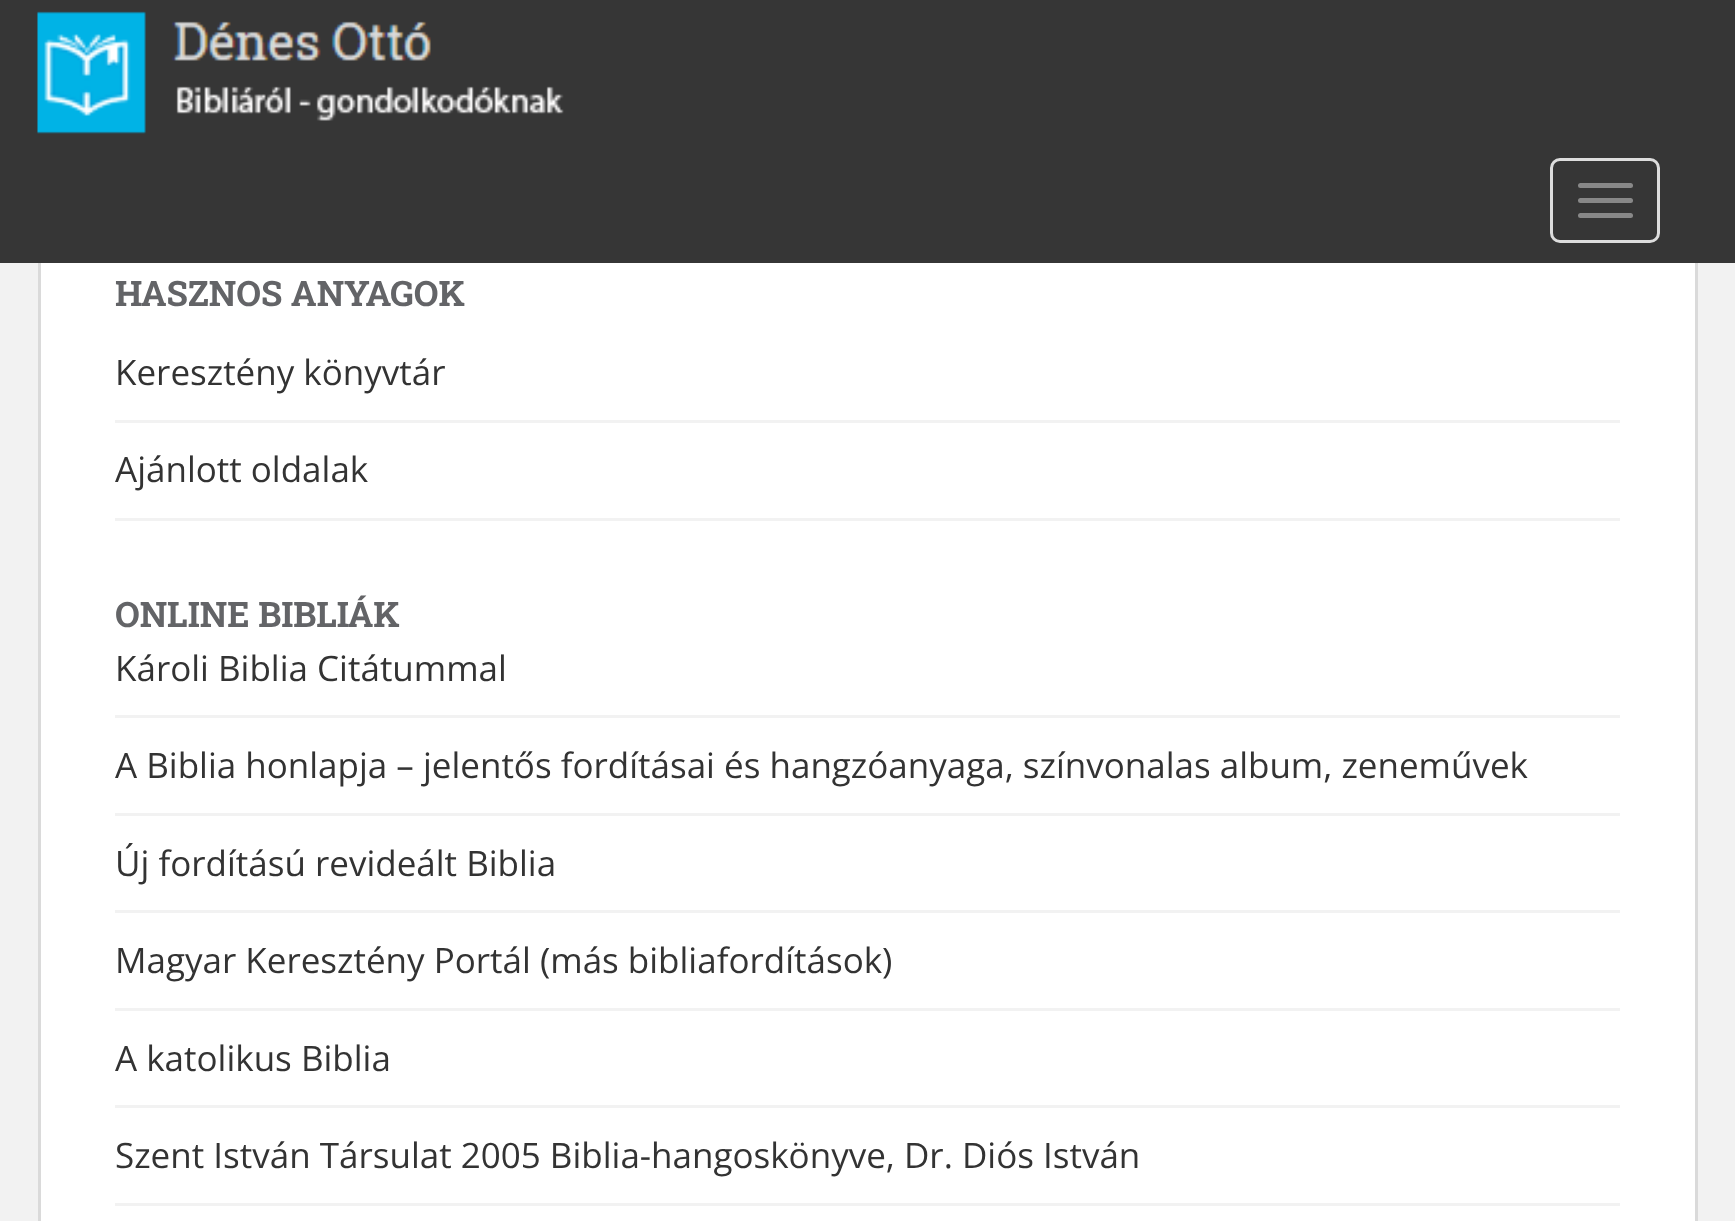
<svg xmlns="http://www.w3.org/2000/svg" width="1735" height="1221">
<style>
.a{font:bold 35px Roboto Slab;fill:#636467}
.b{font:35px Open Sans;fill:#333}
</style>
<rect width="100%" height="100%" fill="#f2f2f2"/>
<path fill="#fff" d="M41 263h1654v958H41z"/>
<path fill="none" stroke="#dadada" stroke-width="3" d="M39.5 -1.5h1657v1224H39.5z"/>
<path fill="#363636" d="M0 0h1735v263H0z"/>
<image href="1.png" x="37" y="11" width="527" height="123"/>
<rect fill="none" stroke="#ddd" stroke-width="3" x="1551.5" y="159.5" width="107" height="82" rx="8.5"/>
<rect fill="#888" x="1578" y="183" width="55" height="5" rx="2.5"/>
<rect fill="#888" x="1578" y="198" width="55" height="5" rx="2.5"/>
<rect fill="#888" x="1578" y="213" width="55" height="5" rx="2.5"/>
<path fill="#f2f2f2" d="M115 420h1505v3H115z"/>
<path fill="#f2f2f2" d="M115 518h1505v3H115z"/>
<path fill="#f2f2f2" d="M115 715h1505v3H115z"/>
<path fill="#f2f2f2" d="M115 813h1505v3H115z"/>
<path fill="#f2f2f2" d="M115 910h1505v3H115z"/>
<path fill="#f2f2f2" d="M115 1008h1505v3H115z"/>
<path fill="#f2f2f2" d="M115 1105h1505v3H115z"/>
<path fill="#f2f2f2" d="M115 1203h1505v3H115z"/>
<text class="a" x="115" y="306">HASZNOS ANYAGOK</text>
<text class="b" x="115" y="385">Keresztény könyvtár</text>
<text class="b" x="115" y="482">Ajánlott oldalak</text>
<text class="a" x="115" y="627">ONLINE BIBLIÁK</text>
<text class="b" x="115" y="681">Károli Biblia Citátummal</text>
<text class="b" x="115" y="778">A Biblia honlapja – jelentős fordításai és hangzóanyaga, színvonalas album, zeneművek</text>
<text class="b" x="115" y="876">Új fordítású revideált Biblia</text>
<text class="b" x="115" y="973">Magyar Keresztény Portál (más bibliafordítások)</text>
<text class="b" x="115" y="1071">A katolikus Biblia</text>
<text class="b" x="115" y="1168">Szent István Társulat 2005 Biblia-hangoskönyve, Dr. Diós István</text>
</svg>
